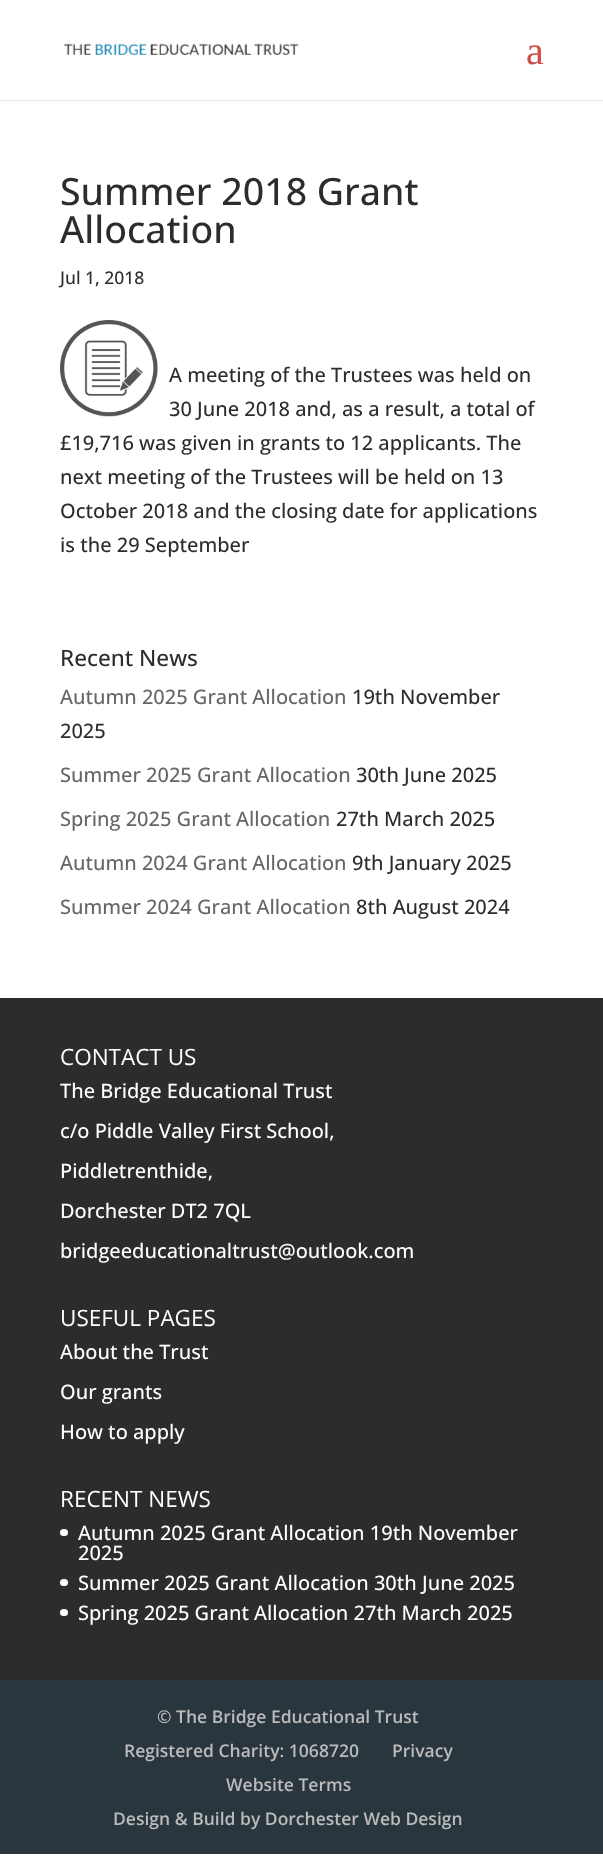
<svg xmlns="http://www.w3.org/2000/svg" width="603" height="1874">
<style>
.a{font:40px Liberation Serif;fill:#d04c47}
.b{font:500 37.5px Open Sans;fill:#2c2c2c}
.c{font:500 17.5px Open Sans;fill:#2c2c2c}
.d{font:500 20px Open Sans;fill:#2c2c2c}
.e{font:500 22.5px Open Sans;fill:#2c2c2c}
.f{font:500 20px Open Sans;fill:#666}
.g{font:22.5px Open Sans;fill:#fff}
.h{font:500 20px Open Sans;fill:#fff}
.i{font:600 17.5px Open Sans;fill:#bbb}
</style>
<rect width="100%" height="100%" fill="#fff"/>
<path fill="#e6e6e6" d="M0 100v1h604v-100v99z"/>
<image href="1.png" x="63" y="43" width="236" height="12"/>
<image href="2.png" x="60" y="320" width="98" height="97"/>
<path fill="#2c2c2c" d="M0 998h603v682H0z"/>
<rect fill="#fff" x="60" y="1529" width="8" height="7" rx="3.5"/>
<rect fill="#fff" x="60" y="1579" width="8" height="7" rx="3.5"/>
<rect fill="#fff" x="60" y="1609" width="8" height="7" rx="3.5"/>
<path fill="#29363d" d="M0 1680h603v174H0z"/>
<text class="a" x="526" y="64">a</text>
<text class="b" x="60" y="205">Summer 2018 Grant</text>
<text class="b" x="60" y="243">Allocation</text>
<text class="c" x="60" y="284">Jul 1, 2018</text>
<text class="d" x="169" y="382">A meeting of the Trustees was held on</text>
<text class="d" x="169" y="416">30 June 2018 and, as a result, a total of</text>
<text class="d" x="60" y="450">£19,716 was given in grants to 12 applicants. The</text>
<text class="d" x="60" y="484">next meeting of the Trustees will be held on 13</text>
<text class="d" x="60" y="518">October 2018 and the closing date for applications</text>
<text class="d" x="60" y="552">is the 29 September</text>
<text class="e" x="60" y="666">Recent News</text>
<text class="f" x="60" y="704">Autumn 2025 Grant Allocation</text>
<text class="d" x="352" y="704">19th November</text>
<text class="d" x="60" y="738">2025</text>
<text class="f" x="60" y="782">Summer 2025 Grant Allocation</text>
<text class="d" x="356" y="782">30th June 2025</text>
<text class="f" x="60" y="826">Spring 2025 Grant Allocation</text>
<text class="d" x="336" y="826">27th March 2025</text>
<text class="f" x="60" y="870">Autumn 2024 Grant Allocation</text>
<text class="d" x="352" y="870">9th January 2025</text>
<text class="f" x="60" y="914">Summer 2024 Grant Allocation</text>
<text class="d" x="356" y="914">8th August 2024</text>
<text class="g" x="60" y="1065">CONTACT US</text>
<text class="h" x="60" y="1098">The Bridge Educational Trust</text>
<text class="h" x="60" y="1138">c/o Piddle Valley First School,</text>
<text class="h" x="60" y="1178">Piddletrenthide,</text>
<text class="h" x="60" y="1218">Dorchester DT2 7QL</text>
<text class="h" x="60" y="1258">bridgeeducationaltrust@outlook.com</text>
<text class="g" x="60" y="1326">USEFUL PAGES</text>
<text class="h" x="60" y="1359">About the Trust</text>
<text class="h" x="60" y="1399">Our grants</text>
<text class="h" x="60" y="1439">How to apply</text>
<text class="g" x="60" y="1507">RECENT NEWS</text>
<text class="h" x="78" y="1540">Autumn 2025 Grant Allocation 19th November</text>
<text class="h" x="78" y="1560">2025</text>
<text class="h" x="78" y="1590">Summer 2025 Grant Allocation 30th June 2025</text>
<text class="h" x="78" y="1620">Spring 2025 Grant Allocation 27th March 2025</text>
<text class="i" x="157" y="1723">© The Bridge Educational Trust</text>
<text class="i" x="124" y="1757">Registered Charity: 1068720</text>
<text class="i" x="392" y="1757">Privacy</text>
<text class="i" x="226" y="1791">Website Terms</text>
<text class="i" x="113" y="1825">Design &amp; Build by Dorchester Web Design</text>
</svg>
